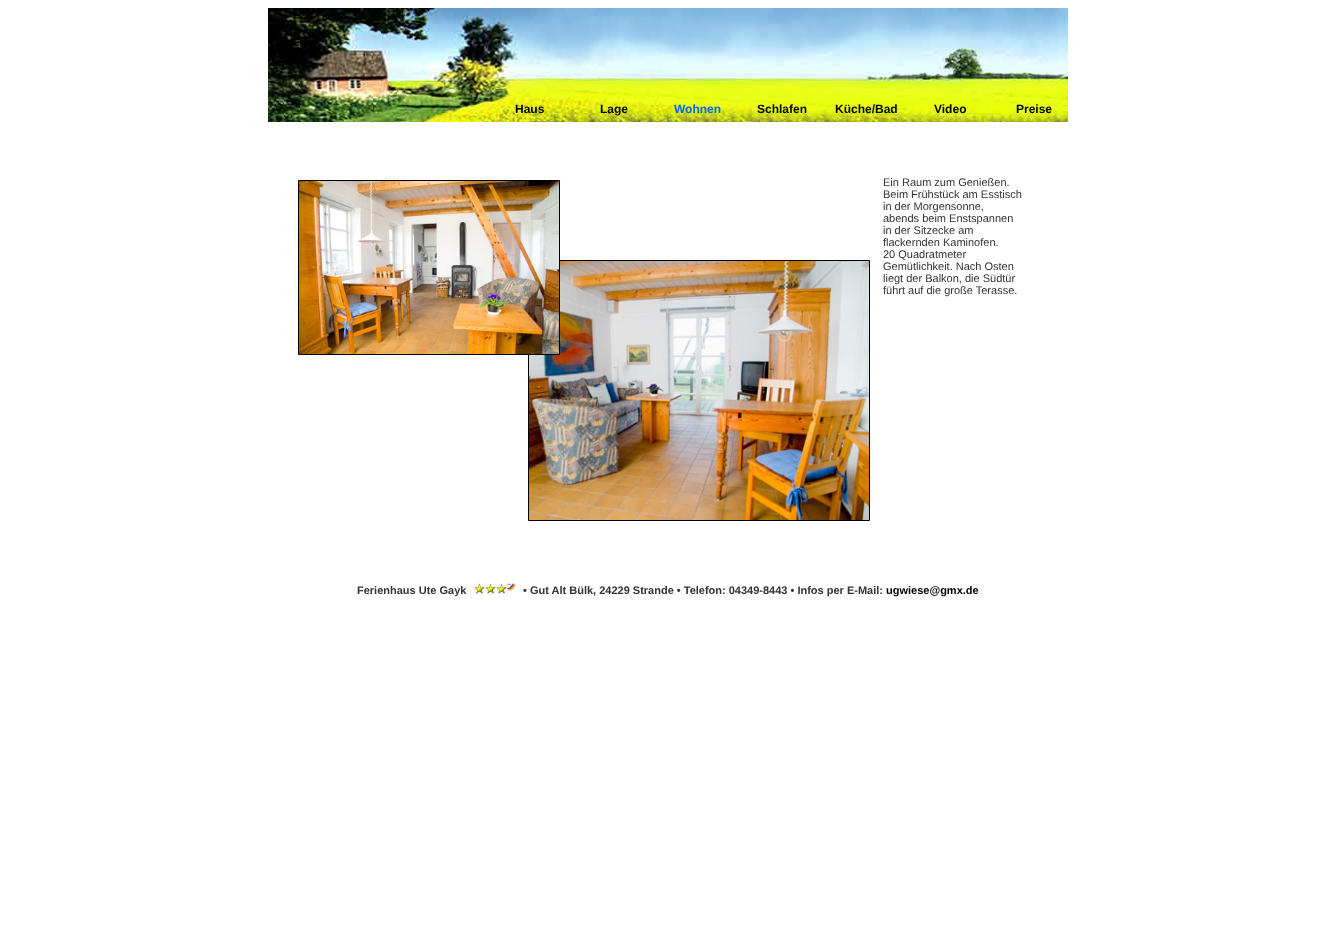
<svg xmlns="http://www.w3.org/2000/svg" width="1336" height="943">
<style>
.a{font:bold 12px Liberation Sans;fill:#000}
.b{font:bold 12px Liberation Sans;fill:#06f}
.c{font:11px Liberation Sans;fill:#333}
.d{font:bold 11px Liberation Sans;fill:#333}
.e{font:bold 11px Liberation Sans;fill:#000}
</style>
<rect width="100%" height="100%" fill="#fff"/>
<image href="1.png" x="268" y="8" width="800" height="114"/>
<path fill="none" stroke="#000" d="M528.5 260.5h341v260H528.5z"/>
<image href="3.png" x="529" y="261" width="340" height="259"/>
<path fill="none" stroke="#000" d="M298.5 180.5h261v174H298.5z"/>
<image href="2.png" x="299" y="181" width="260" height="173"/>
<image href="4.png" x="474" y="583" width="42" height="11"/>
<text class="a" x="515" y="113">Haus</text>
<text class="a" x="600" y="113">Lage</text>
<text class="b" x="674" y="113">Wohnen</text>
<text class="a" x="757" y="113">Schlafen</text>
<text class="a" x="835" y="113">Küche/Bad</text>
<text class="a" x="934" y="113">Video</text>
<text class="a" x="1016" y="113">Preise</text>
<text class="c" x="883" y="186">Ein Raum zum Genießen.</text>
<text class="c" x="883" y="198">Beim Frühstück am Esstisch</text>
<text class="c" x="883" y="210">in der Morgensonne,</text>
<text class="c" x="883" y="222">abends beim Enstspannen</text>
<text class="c" x="883" y="234">in der Sitzecke am</text>
<text class="c" x="883" y="246">flackernden Kaminofen.</text>
<text class="c" x="883" y="258">20 Quadratmeter</text>
<text class="c" x="883" y="270">Gemütlichkeit. Nach Osten</text>
<text class="c" x="883" y="282">liegt der Balkon, die Südtür</text>
<text class="c" x="883" y="294">führt auf die große Terasse.</text>
<text class="d" x="357" y="594">Ferienhaus Ute Gayk</text>
<text class="d" x="523" y="594">• Gut Alt Bülk, 24229 Strande • Telefon: 04349-8443 • Infos per E-Mail:</text>
<text class="e" x="886" y="594">ugwiese@gmx.de</text>
</svg>
